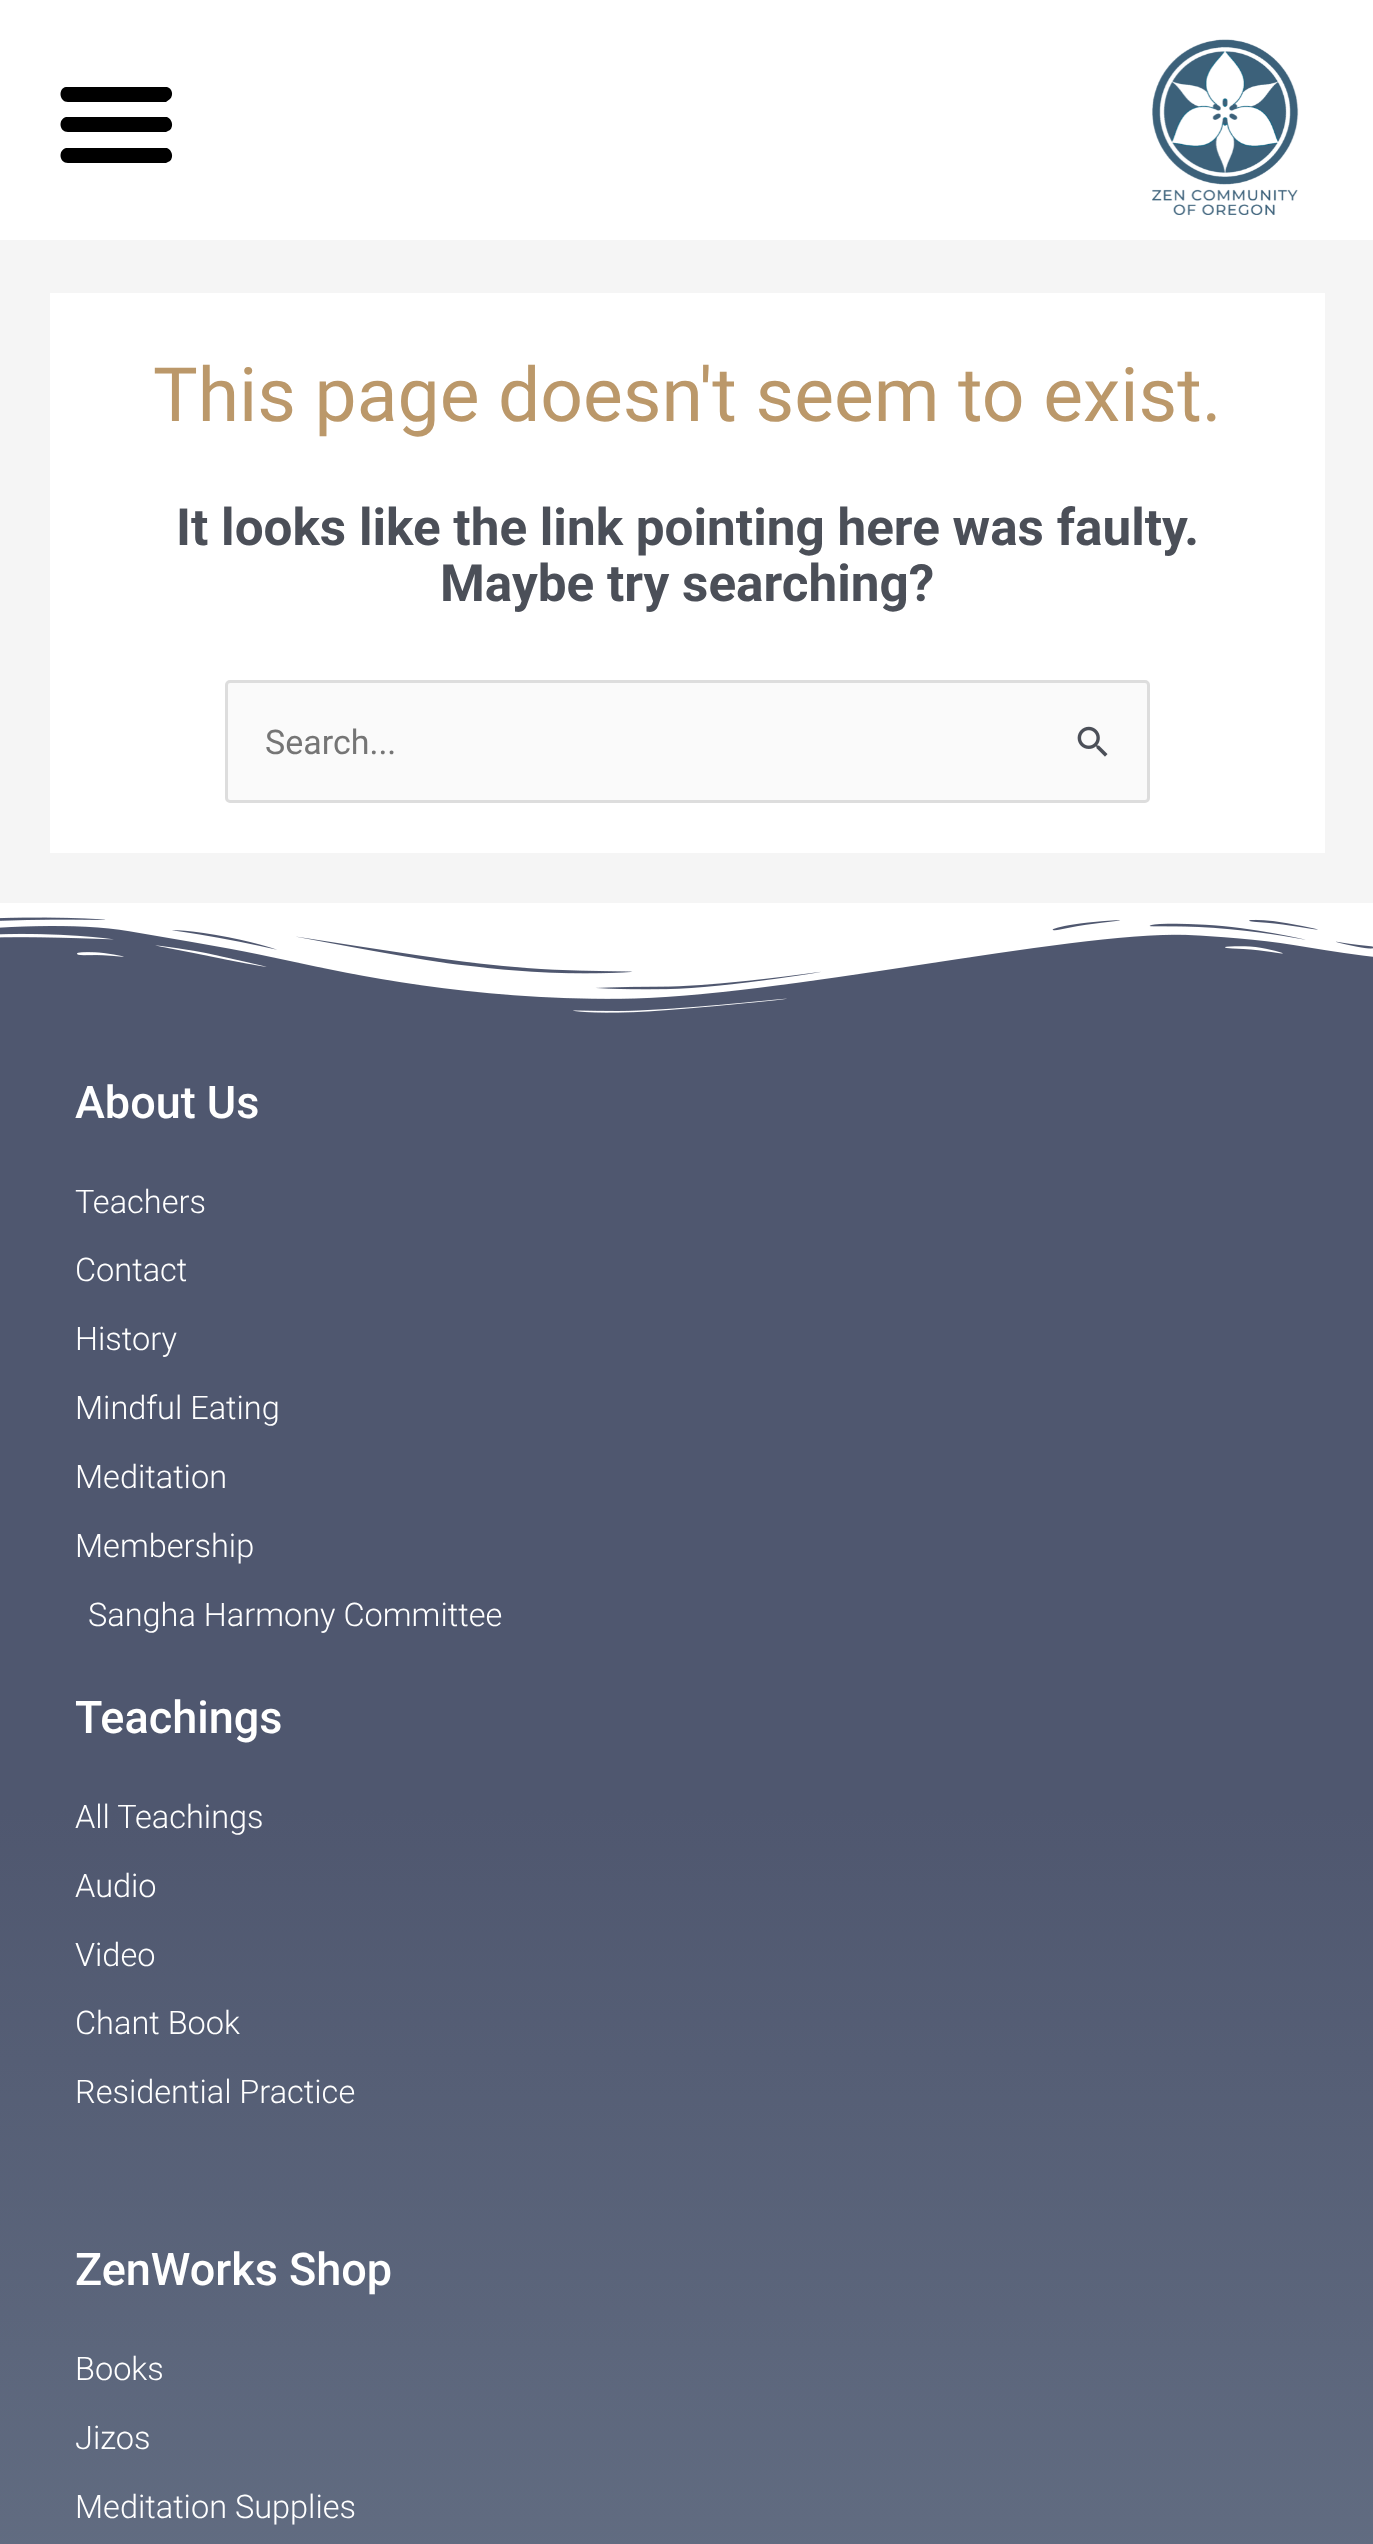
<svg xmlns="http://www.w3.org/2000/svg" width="1373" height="2544">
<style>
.a{font:75px Roboto;fill:#bb986a}
.b{font:bold 51.25px Roboto;fill:#4b4f58}
.c{font:34px Roboto;fill:#757575}
.d{font:500 45px Roboto;fill:#fff}
.e{font:300 32.5px Roboto;fill:#fff}
</style>
<defs>
<linearGradient id="g1" gradientUnits="userSpaceOnUse" x1="687" y1="905" x2="688" y2="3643"><stop offset="0.33" stop-color="#4f576f"/><stop offset="1" stop-color="#7b8a9b"/></linearGradient>
</defs>
<rect width="100%" height="100%" fill="#f5f5f5"/>
<path fill="#fff" d="M0 0h1373v240H0z"/>
<path fill="#000" d="M68 102h98l4-3c4-4 2-11-3-12h-101c-8 1-7 15 2 15zm0 30h98l4-2c4-4 2-11-3-13h-101c-8 2-7 15 2 15zm0 31h98l4-2c4-4 2-11-3-13h-101c-8 2-7 15 2 15z"/>
<image href="1.png" x="1152" y="39" width="147" height="176"/>
<path fill="#fff" d="M50 293h1275v560H50z"/>
<rect fill="#fafafa" stroke="#ddd" stroke-width="3" x="226.5" y="681.5" width="922" height="120" rx="3.5"/>
<image href="2.png" x="1077" y="726" width="31" height="31"/>
<path fill="url(#g1)" d="M0 917h1373v1627H0z"/>
<image href="3.png" x="0" y="903" width="1373" height="110"/>
<text class="a" x="153" y="421">This page doesn't seem to exist.</text>
<text class="b" x="176" y="545">It looks like the link pointing here was faulty.</text>
<text class="b" x="440" y="601">Maybe try searching?</text>
<text class="c" x="265" y="754">Search...</text>
<text class="d" x="75" y="1118">About Us</text>
<text class="e" x="75" y="1213">Teachers</text>
<text class="e" x="75" y="1281">Contact</text>
<text class="e" x="75" y="1350">History</text>
<text class="e" x="75" y="1419">Mindful Eating</text>
<text class="e" x="75" y="1488">Meditation</text>
<text class="e" x="75" y="1557">Membership</text>
<text class="e" x="88" y="1626">Sangha Harmony Committee</text>
<text class="d" x="75" y="1733">Teachings</text>
<text class="e" x="75" y="1828">All Teachings</text>
<text class="e" x="75" y="1897">Audio</text>
<text class="e" x="75" y="1966">Video</text>
<text class="e" x="75" y="2034">Chant Book</text>
<text class="e" x="75" y="2103">Residential Practice</text>
<text class="d" x="75" y="2285">ZenWorks Shop</text>
<text class="e" x="75" y="2380">Books</text>
<text class="e" x="75" y="2449">Jizos</text>
<text class="e" x="75" y="2518">Meditation Supplies</text>
</svg>
